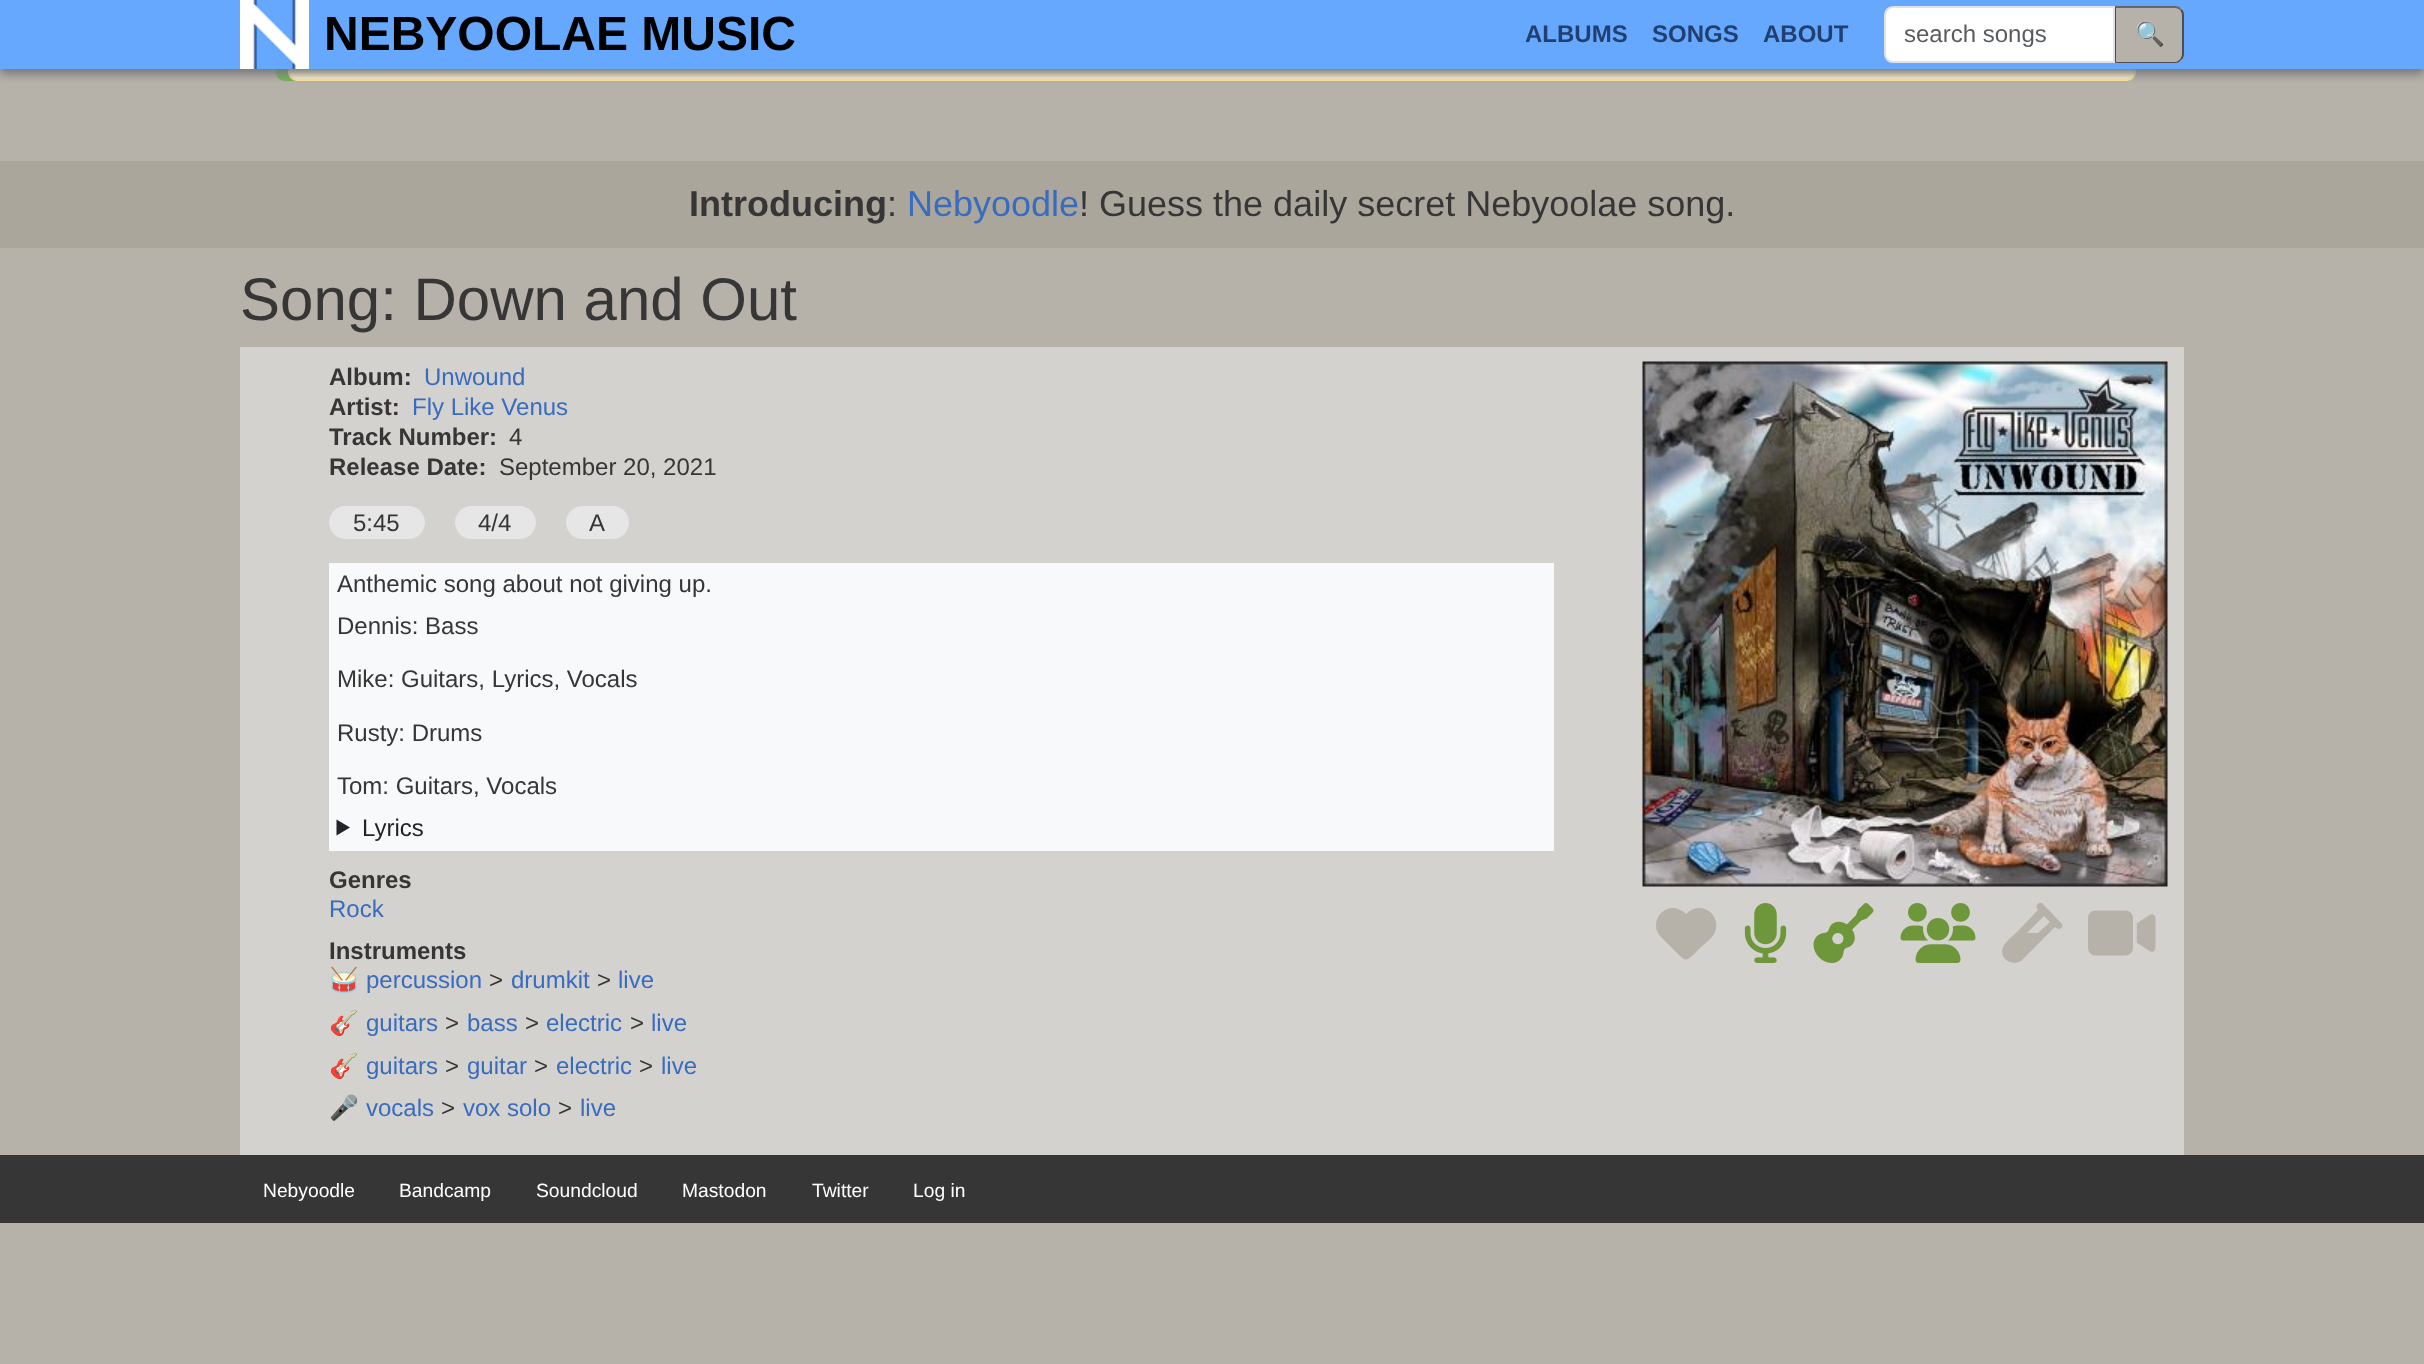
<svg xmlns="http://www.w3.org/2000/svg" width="2424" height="1364">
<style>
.a{font:bold 48px Liberation Sans;fill:#000}
.b{font:bold 24px Liberation Sans;fill:#213f71}
.c{font:24px Liberation Sans;fill:#595c5f}
.d{font:24px Noto Color Emoji;fill:#fff}
.e{font:bold 36px Liberation Sans;fill:#363636}
.f{font:36px Liberation Sans;fill:#363636}
.g{font:36px Liberation Sans;fill:#396bbf}
.h{font:60px Liberation Sans;fill:#363636}
.i{font:bold 24px Liberation Sans;fill:#363636}
.j{font:24px Liberation Sans;fill:#396bbf}
.k{font:24px Liberation Sans;fill:#363636}
.l{font:24px Liberation Sans;fill:#212529}
.m{font:24px Noto Color Emoji;fill:#396bbf}
.n{font:19.25px Liberation Sans;fill:#fff}
</style>
<rect width="100%" height="100%" fill="#b6b1a9"/>
<path fill="#77b259" d="M285 0c-5 0-9 4-9 9v63c0 5 4 9 9 9h12c-5 0-9-4-9-9v-63c0-5 4-9 9-9z"/>
<rect fill="#fff3cd" stroke="#ffe69c" stroke-width="2" x="289" y="1" width="1846" height="79" rx="8"/>
<path fill="#747678" filter="blur(5px)" d="M0 5h2424v69H0z"/>
<path fill="#66a8fe" d="M0 0h2424v69H0z"/>
<image href="1.png" x="240" y="0" width="69" height="69"/>
<path fill="#fff" stroke="#dee2e6" stroke-width="2" d="M1893 7h221v55h-221c-4.5 0-8-3.5-8-8v-39c0-4.5 3.5-8 8-8z"/>
<path fill="#b6b1a9" d="M2115 6h60c5 0 9 4 9 9v39c0 5-4 9-9 9h-60z"/>
<path fill="#666" d="M2115 6l2 2h58c2 0 4 1 5 2l1-1c-1-2-3-3-6-3z"/>
<path fill="#4d4d4d" d="M2184 54v-39c0-3-1-5-3-6l-1 1c1 1 2 3 2 5v39c0 2-1 4-2 5l1 1c2-1 3-4 3-6z"/>
<path fill="#4d4d4d" d="M2175 63c3 0 5-1 6-3l-1-1c-1 2-3 3-5 3h-59l-1 1z"/>
<path fill="#4d4d4d" d="M2115 6v57l1-1v-54h1z"/>
<path fill="#aaa69c" d="M0 161h2424v87H0z"/>
<path fill="#d4d2ce" d="M240 347h1944v808H240z"/>
<rect fill="#e6e6e6" x="329" y="506" width="96" height="33" rx="16.5"/>
<rect fill="#e6e6e6" x="455" y="506" width="81" height="33" rx="16.5"/>
<rect fill="#e6e6e6" x="566" y="506" width="63" height="33" rx="16.5"/>
<path fill="#f8f9fa" d="M329 563h1225v288H329z"/>
<path fill="#212529" d="M336.5 819.5l13.5 8l-13.5 8z"/>
<image href="2.png" x="1642" y="361" width="526" height="526"/>
<path fill="#b6b1a9" d="M1662 938l17 17c7 6 7 6 14 0l7-7c5-5 12-9 15-16c7-17-14-33-29-18c-18-18-41 8-24 24z"/>
<image href="3.png" x="1744" y="903" width="43" height="60"/>
<image href="4.png" x="1813" y="903" width="61" height="60"/>
<image href="5.png" x="1900" y="903" width="76" height="60"/>
<path fill="#b6b1a9" d="M2043 904c-4-4-9 2-5 6l-21 22c-7 7-21 16-12 27c4 4 11 5 16 2l34-34c4 4 9 1 7-3zm-16 29l17-17l6 6l-12 11z"/>
<image href="6.png" x="2088" y="910" width="68" height="46"/>
<path fill="#363636" d="M0 1155h2424v68H0z"/>
<text class="a" x="324" y="50">NEBYOOLAE MUSIC</text>
<text class="b" x="1525" y="42">ALBUMS</text>
<text class="b" x="1652" y="42">SONGS</text>
<text class="b" x="1763" y="42">ABOUT</text>
<text class="c" x="1904" y="42">search songs</text>
<text class="d" x="2135" y="42">🔍</text>
<text class="e" x="689" y="216">Introducing</text>
<text class="f" x="887" y="216">:</text>
<text class="g" x="907" y="216">Nebyoodle</text>
<text class="f" x="1079" y="216">! Guess the daily secret Nebyoolae song.</text>
<text class="h" x="240" y="320">Song: Down and Out</text>
<text class="i" x="329" y="385">Album:</text>
<text class="j" x="424" y="385">Unwound</text>
<text class="i" x="329" y="415">Artist:</text>
<text class="j" x="412" y="415">Fly Like Venus</text>
<text class="i" x="329" y="445">Track Number:</text>
<text class="k" x="509" y="445">4</text>
<text class="i" x="329" y="475">Release Date:</text>
<text class="k" x="499" y="475">September 20, 2021</text>
<text class="k" x="353" y="531">5:45</text>
<text class="k" x="478" y="531">4/4</text>
<text class="k" x="589" y="531">A</text>
<text class="k" x="337" y="592">Anthemic song about not giving up.</text>
<text class="k" x="337" y="634">Dennis: Bass</text>
<text class="k" x="337" y="687">Mike: Guitars, Lyrics, Vocals</text>
<text class="k" x="337" y="741">Rusty: Drums</text>
<text class="k" x="337" y="794">Tom: Guitars, Vocals</text>
<text class="l" x="362" y="836">Lyrics</text>
<text class="i" x="329" y="888">Genres</text>
<text class="j" x="329" y="917">Rock</text>
<text class="i" x="329" y="959">Instruments</text>
<text class="m" x="329" y="988">🥁</text>
<text class="j" x="366" y="988">percussion</text>
<text class="k" x="489" y="988">&gt;</text>
<text class="j" x="511" y="988">drumkit</text>
<text class="k" x="597" y="988">&gt;</text>
<text class="j" x="618" y="988">live</text>
<text class="m" x="329" y="1031">🎸</text>
<text class="j" x="366" y="1031">guitars</text>
<text class="k" x="445" y="1031">&gt;</text>
<text class="j" x="467" y="1031">bass</text>
<text class="k" x="525" y="1031">&gt;</text>
<text class="j" x="546" y="1031">electric</text>
<text class="k" x="630" y="1031">&gt;</text>
<text class="j" x="651" y="1031">live</text>
<text class="m" x="329" y="1074">🎸</text>
<text class="j" x="366" y="1074">guitars</text>
<text class="k" x="445" y="1074">&gt;</text>
<text class="j" x="467" y="1074">guitar</text>
<text class="k" x="534" y="1074">&gt;</text>
<text class="j" x="556" y="1074">electric</text>
<text class="k" x="639" y="1074">&gt;</text>
<text class="j" x="661" y="1074">live</text>
<text class="m" x="329" y="1116">🎤</text>
<text class="j" x="366" y="1116">vocals</text>
<text class="k" x="441" y="1116">&gt;</text>
<text class="j" x="463" y="1116">vox solo</text>
<text class="k" x="558" y="1116">&gt;</text>
<text class="j" x="580" y="1116">live</text>
<text class="n" x="263" y="1197">Nebyoodle</text>
<text class="n" x="399" y="1197">Bandcamp</text>
<text class="n" x="536" y="1197">Soundcloud</text>
<text class="n" x="682" y="1197">Mastodon</text>
<text class="n" x="812" y="1197">Twitter</text>
<text class="n" x="913" y="1197">Log in</text>
</svg>
